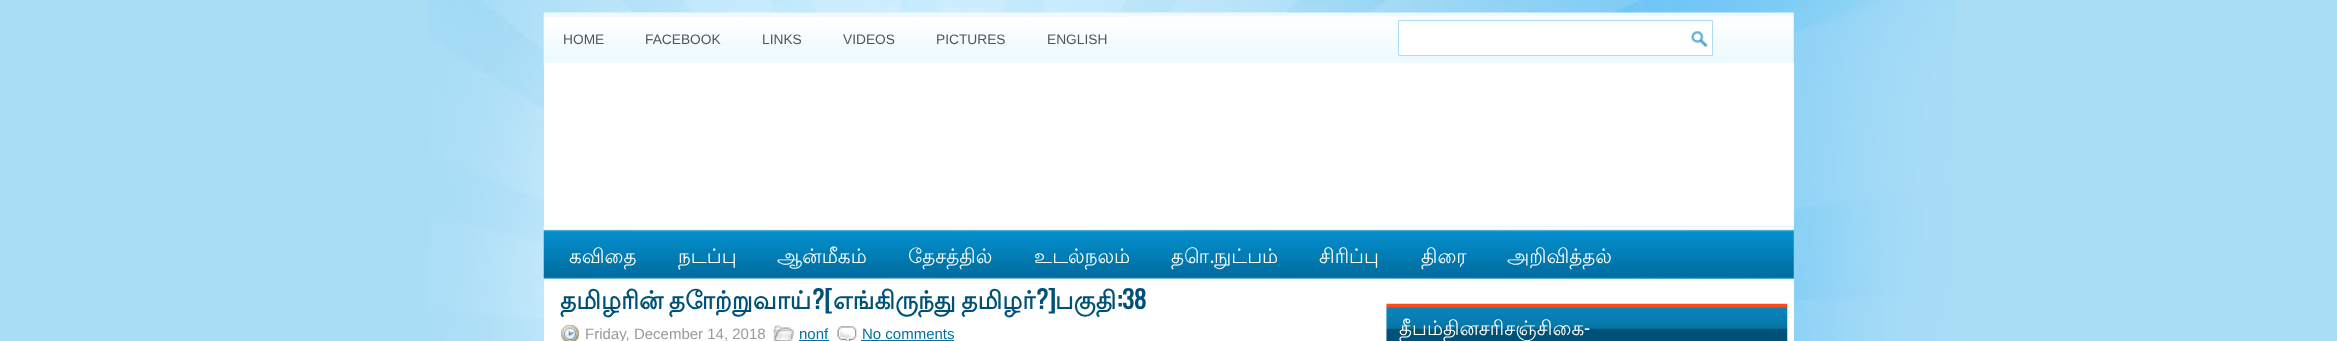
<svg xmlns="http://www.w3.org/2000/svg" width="2337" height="341">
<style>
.a{font:13.75px Liberation Sans;fill:#555}
.b{font:20px Lohit Tamil;fill:#fff}
.c{font:20px Oswald;fill:#fff}
.d{font:bold 25px Lohit Tamil;fill:#005177}
.e{font:bold 25px Oswald;fill:#005177}
.f{font:15px Liberation Sans;fill:#999}
.g{font:15px Liberation Sans;fill:#0171a5}
</style>
<rect width="100%" height="100%" fill="#a9ddf6"/>
<image href="1.png" x="428" y="0" width="1529" height="341"/>
<image href="2.png" x="543" y="12" width="1251" height="55"/>
<path fill="#eefaff" d="M544 16h79v1H544z"/>
<path fill="#eefaff" d="M626 16h114v1H626z"/>
<path fill="#eefaff" d="M744 16h76v1H744z"/>
<path fill="#eefaff" d="M824 16h90v1H824z"/>
<path fill="#eefaff" d="M918 16h107v1H918z"/>
<path fill="#eefaff" d="M1029 16h97v1H1029z"/>
<path fill="#fff" d="M1399 23h313v32H1399z"/>
<image href="3.png" x="1691" y="31" width="17" height="17"/>
<path fill="none" stroke="#aedcf4" d="M1398.5 20.5h314v35H1398.5z"/>
<path fill="#fff" d="M544 63h1250v163H544z"/>
<image href="4.png" x="543" y="226" width="1251" height="53"/>
<path fill="#fff" d="M544 279h1250v62H544z"/>
<image href="5.png" x="561" y="324" width="18" height="17"/>
<image href="6.png" x="773" y="325" width="21" height="16"/>
<path fill="#0171a5" d="M799 340h30v1H799z"/>
<image href="7.png" x="837" y="326" width="20" height="15"/>
<path fill="#0171a5" d="M861 340h93v1H861z"/>
<image href="8.png" x="1386" y="303" width="402" height="38"/>
<text class="a" x="563" y="44">HOME</text>
<text class="a" x="645" y="44">FACEBOOK</text>
<text class="a" x="762" y="44">LINKS</text>
<text class="a" x="843" y="44">VIDEOS</text>
<text class="a" x="936" y="44">PICTURES</text>
<text class="a" x="1047" y="44">ENGLISH</text>
<text class="b" x="569" y="263">கவிதை</text>
<text class="b" x="678" y="263">நடப்பு</text>
<text class="b" x="777" y="263">ஆன்மீகம்</text>
<text class="b" x="908" y="263">தேசத்தில்</text>
<text class="b" x="1034" y="263">உடல்நலம்</text>
<text class="b" x="1171" y="263">தொ</text>
<text class="c" x="1210" y="263">.</text>
<text class="b" x="1214" y="263">நுட்பம்</text>
<text class="b" x="1319" y="263">சிரிப்பு</text>
<text class="b" x="1421" y="263">திரை</text>
<text class="b" x="1507" y="263">அறிவித்தல்</text>
<text class="d" x="560" y="309" word-spacing="-2">தமிழரின் தோற்றுவாய்</text>
<text class="e" x="812" y="309">?[</text>
<text class="d" x="833" y="309" word-spacing="-2">எங்கிருந்து தமிழர்</text>
<text class="e" x="1036" y="309">?]</text>
<text class="d" x="1055" y="309">பகுதி</text>
<text class="e" x="1117" y="309">:38</text>
<text class="f" x="585" y="339">Friday, December 14, 2018</text>
<text class="g" x="799" y="339">nonf</text>
<text class="g" x="862" y="339">No comments</text>
<text class="b" x="1399" y="335">தீபம்தினசரிசஞ்சிகை</text>
<text class="c" x="1584" y="335">-</text>
</svg>
